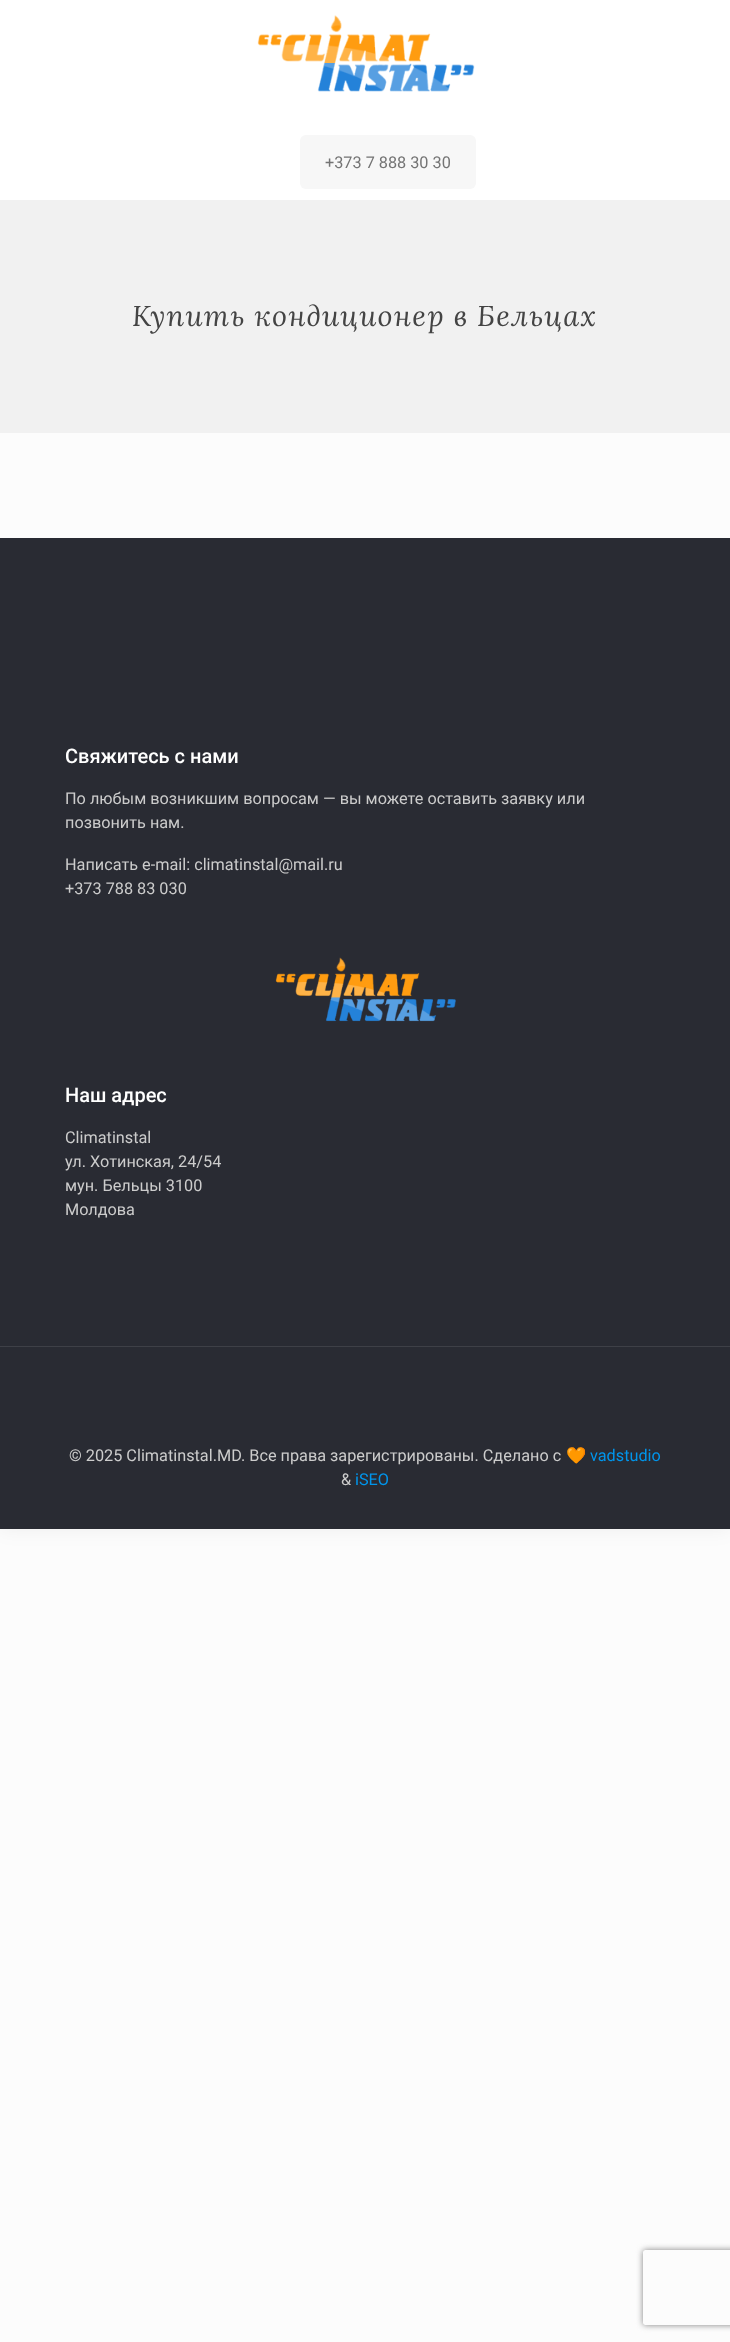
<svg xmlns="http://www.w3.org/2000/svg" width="730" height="2342">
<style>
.a{font:16.25px Roboto;fill:#747474}
.b{font:italic 28.75px Lora;letter-spacing:1.25px;fill:#444}
.c{font:500 20px Roboto;fill:#fff}
.d{font:16.25px Roboto;fill:#ccc}
.e{font:16.25px Noto Color Emoji;fill:#ccc}
.f{font:16.25px Roboto;fill:#0095eb}
</style>
<defs>
<clipPath id="clip1"><path d="M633 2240h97v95h-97zm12.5 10h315c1.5 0 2.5 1 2.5 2.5v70c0 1.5-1 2.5-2.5 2.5h-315c-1.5 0-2.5-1-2.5-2.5v-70c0-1.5 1-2.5 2.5-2.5z" clip-rule="evenodd"/></clipPath>
</defs>
<rect width="100%" height="100%" fill="#fcfcfc"/>
<path fill="#0000000f" filter="blur(9.5px)" d="M0 0h730v1529H0z"/>
<path fill="#fcfcfc" d="M0 433h730v105H0z"/>
<path fill="#fff" d="M0 0h730v200H0z"/>
<image href="1.png" x="257" y="15" width="218" height="77"/>
<rect fill="#f7f7f7" x="300" y="135" width="176" height="54" rx="6"/>
<path fill="#f1f1f1" d="M0 200h730v233H0z"/>
<path fill="#292b33" d="M0 538h730v991H0z"/>
<image href="2.png" x="275" y="957" width="181" height="65"/>
<path fill="#3e4047" d="M0 1346h730v1H0z"/>
<g clip-path="url(#clip1)">
<rect fill="#808080" filter="blur(3px)" x="643" y="2250" width="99" height="75" rx="2.5"/>
</g>
<text class="a" x="325" y="168">+373 7 888 30 30</text>
<text class="b" x="132" y="326">Купить кондиционер в Бельцах</text>
<text class="c" x="65" y="763">Свяжитесь с нами</text>
<text class="d" x="65" y="804">По любым возникшим вопросам — вы можете оставить заявку или</text>
<text class="d" x="65" y="828">позвонить нам.</text>
<text class="d" x="65" y="870">Написать e-mail: climatinstal@mail.ru</text>
<text class="d" x="65" y="894">+373 788 83 030</text>
<text class="c" x="65" y="1102">Наш адрес</text>
<text class="d" x="65" y="1143">Climatinstal</text>
<text class="d" x="65" y="1167">ул. Хотинская, 24/54</text>
<text class="d" x="65" y="1191">мун. Бельцы 3100</text>
<text class="d" x="65" y="1215">Молдова</text>
<text class="d" x="69" y="1461">© 2025 Climatinstal.MD. Все права зарегистрированы. Сделано с</text>
<text class="e" x="566" y="1461">🧡</text>
<text class="f" x="590" y="1461">vadstudio</text>
<text class="d" x="341" y="1485">&amp;</text>
<text class="f" x="355" y="1485">iSEO</text>
</svg>
